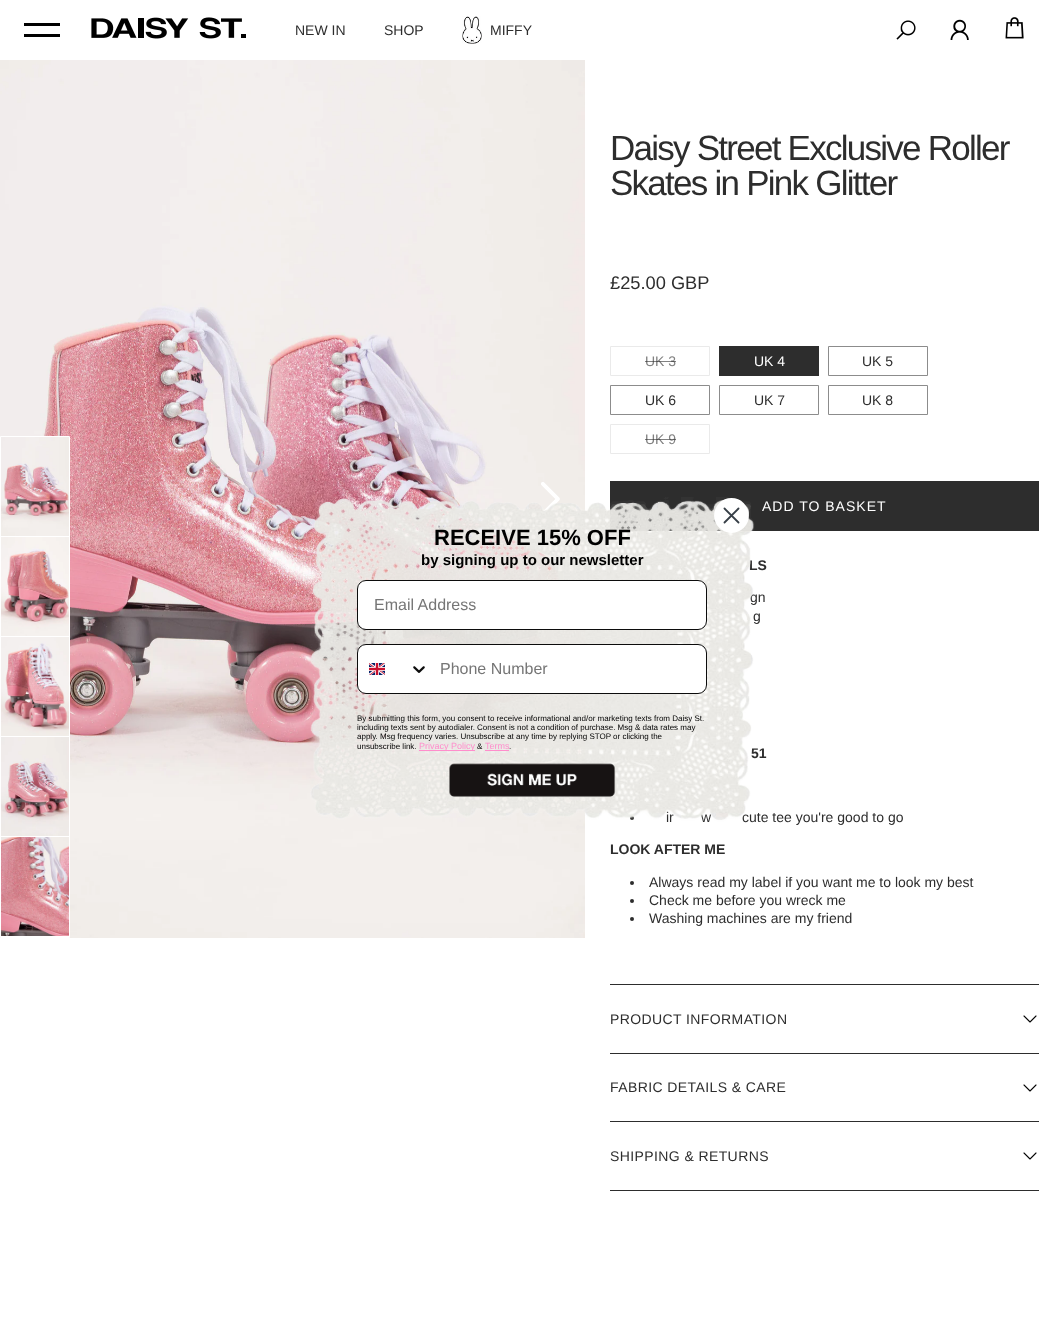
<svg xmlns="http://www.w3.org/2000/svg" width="1064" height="1330">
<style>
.a{font:14px Liberation Sans;fill:#2d2d2d}
.b{font:35px Liberation Sans;letter-spacing:-1.75px;fill:#2d2d2d}
.c{font:18.25px Liberation Sans;fill:#2d2d2d}
.d{font:14px Liberation Sans;fill:#818181}
.e{font:14px Liberation Sans;fill:#fff}
.f{font:14px Liberation Sans;letter-spacing:1px;fill:#fff}
.g{font:bold 14px Liberation Sans;fill:#2d2d2d}
.h{font:8px Liberation Sans;fill:#000}
.i{font:9px Liberation Sans;fill:#ff8dcc}
.j{font:16px Liberation Sans;fill:#767676}
.k{font:bold 15px Liberation Sans;fill:#000}
.l{font:bold 22px Liberation Sans;fill:#000}
.m{font:14px Liberation Sans;letter-spacing:0.4px;fill:#2d2d2d}
</style>
<rect width="100%" height="100%" fill="#fff"/>
<path fill="#000" d="M24 23h36v3H24z"/>
<path fill="#000" d="M24 34h36v3H24z"/>
<image href="1.png" x="91" y="17" width="155" height="22"/>
<image href="2.png" x="462" y="16" width="20" height="28"/>
<image href="3.png" x="896" y="20" width="20" height="20"/>
<image href="4.png" x="950" y="19" width="19" height="21"/>
<image href="5.png" x="1005" y="17" width="19" height="22"/>
<image href="10.png" x="0" y="60" width="585" height="878"/>
<image href="11.png" x="541" y="482" width="19" height="34"/>
<path fill="none" stroke="#fff" d="M0.5 436.5h69v501H0.5z"/>
<path fill="#fff" d="M1 536h68v1H1z"/>
<image href="12.png" x="1" y="437" width="68" height="99"/>
<path fill="#fff" d="M1 636h68v1H1z"/>
<image href="13.png" x="1" y="537" width="68" height="99"/>
<path fill="#fff" d="M1 736h68v1H1z"/>
<image href="14.png" x="1" y="637" width="68" height="99"/>
<path fill="#fff" d="M1 836h68v1H1z"/>
<image href="15.png" x="1" y="737" width="68" height="99"/>
<path fill="#fff" d="M1 936h68v1H1z"/>
<image href="16.png" x="1" y="837" width="68" height="99"/>
<path fill="none" stroke="#eaeaea" d="M610.5 346.5h99v29H610.5z"/>
<path fill="#2d2d2d" d="M719 346h100v30H719z"/>
<path fill="none" stroke="#8c8c8c" d="M828.5 346.5h99v29H828.5z"/>
<path fill="none" stroke="#8c8c8c" d="M610.5 385.5h99v29H610.5z"/>
<path fill="none" stroke="#8c8c8c" d="M719.5 385.5h99v29H719.5z"/>
<path fill="none" stroke="#8c8c8c" d="M828.5 385.5h99v29H828.5z"/>
<path fill="none" stroke="#eaeaea" d="M610.5 424.5h99v29H610.5z"/>
<path fill="#2d2d2d" d="M610 481h429v50H610z"/>
<circle fill="#2d2d2d" cx="632" cy="818" r="2"/>
<circle fill="#2d2d2d" cx="632" cy="883" r="2"/>
<circle fill="#2d2d2d" cx="632" cy="901" r="2"/>
<circle fill="#2d2d2d" cx="632" cy="919" r="2"/>
<path fill="#2d2d2d" d="M610 984h429v1H610z"/>
<path fill="#2d2d2d" d="M610 1053h429v1H610z"/>
<image href="17.png" x="1023" y="1015" width="14" height="8"/>
<path fill="#2d2d2d" d="M610 1121h429v1H610z"/>
<image href="17.png" x="1023" y="1084" width="14" height="8"/>
<path fill="#2d2d2d" d="M610 1190h429v1H610z"/>
<image href="17.png" x="1023" y="1152" width="14" height="8"/>
<text class="a" x="295" y="35">NEW IN</text>
<text class="a" x="384" y="35">SHOP</text>
<text class="a" x="490" y="35">MIFFY</text>
<text class="b" x="610" y="160">Daisy Street Exclusive Roller</text>
<text class="b" x="610" y="195">Skates in Pink Glitter</text>
<text class="c" x="610" y="289">£25.00 GBP</text>
<text class="d" x="645" y="366">UK 3</text>
<path fill="#2d2d2d99" d="M645 361h31v1H645z"/>
<text class="e" x="754" y="366">UK 4</text>
<text class="a" x="862" y="366">UK 5</text>
<text class="a" x="645" y="405">UK 6</text>
<text class="a" x="754" y="405">UK 7</text>
<text class="a" x="862" y="405">UK 8</text>
<text class="d" x="645" y="444">UK 9</text>
<path fill="#2d2d2d99" d="M645 439h31v1H645z"/>
<text class="f" x="762" y="511">ADD TO BASKET</text>
<text class="g" x="749" y="570">LS</text>
<text class="a" x="750" y="602">gn</text>
<text class="a" x="753" y="621">g</text>
<text class="g" x="751" y="758">51</text>
<text class="a" x="666" y="822">ir</text>
<text class="a" x="701" y="822">w</text>
<text class="a" x="742" y="822">cute tee you're good to go</text>
<image href="6.png" x="310" y="497" width="445" height="325"/>
<circle fill="#fff" stroke="#fff" stroke-width="1.8" cx="731.5" cy="515.5" r="16.5"/>
<path fill="none" stroke="#373f47" stroke-width="1.8" stroke-linecap="round" stroke-linejoin="round" d="M724.5 508.5l14 14m-14 0l14-14z"/>
<image href="9.png" x="449" y="763" width="167" height="34"/>
<text class="h" x="509" y="749">.</text>
<text class="i" x="485" y="749">Terms</text>
<path fill="#ff8dcc" d="M485 750h24v1H485z"/>
<text class="h" x="477" y="749">&amp;</text>
<path fill="#ff8dcc" d="M419 750h56v1H419z"/>
<text class="i" x="419" y="749">Privacy Policy</text>
<text class="h" x="357" y="749">unsubscribe link.</text>
<text class="h" x="357" y="739">apply. Msg frequency varies. Unsubscribe at any time by replying STOP or clicking the</text>
<text class="h" x="357" y="730">including texts sent by autodialer. Consent is not a condition of purchase. Msg &amp; data rates may</text>
<text class="h" x="357" y="721">By submitting this form, you consent to receive informational and/or marketing texts from Daisy St.</text>
<rect fill="#fff" stroke="#0c0c0c" x="357.5" y="644.5" width="349" height="49" rx="8.5"/>
<image href="8.png" x="413" y="666" width="12" height="7"/>
<text class="j" x="440" y="674">Phone Number</text>
<image href="7.png" x="369" y="663" width="16" height="12"/>
<rect fill="#fff" stroke="#0c0c0c" x="357.5" y="580.5" width="349" height="49" rx="8.5"/>
<text class="j" x="374" y="610">Email Address</text>
<text class="k" x="421" y="565">by signing up to our newsletter</text>
<text class="l" x="434" y="545">RECEIVE 15% OFF</text>
<text class="g" x="610" y="854">LOOK AFTER ME</text>
<text class="a" x="649" y="887">Always read my label if you want me to look my best</text>
<text class="a" x="649" y="905">Check me before you wreck me</text>
<text class="a" x="649" y="923">Washing machines are my friend</text>
<text class="m" x="610" y="1024">PRODUCT INFORMATION</text>
<text class="m" x="610" y="1092">FABRIC DETAILS &amp; CARE</text>
<text class="m" x="610" y="1161">SHIPPING &amp; RETURNS</text>
</svg>
